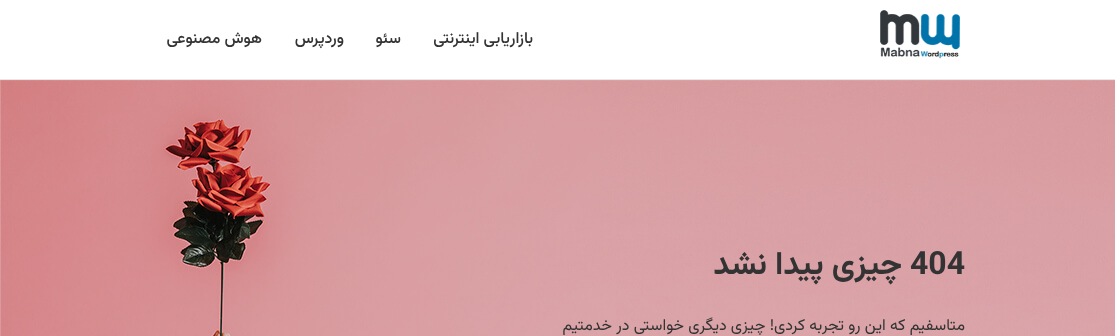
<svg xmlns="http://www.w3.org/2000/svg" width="1115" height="336">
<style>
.a{font:500 16px Vazirmatn;direction:rtl;fill:#333}
.b{font:bold 32px Vazirmatn;fill:#333}
.c{font:bold 32px Vazirmatn;direction:rtl;fill:#333}
.d{font:16px Vazirmatn;direction:rtl;fill:#333}
</style>
<rect width="100%" height="100%" fill="#fff"/>
<path fill="#e5e7eb" d="M0 79h1115v1H0z"/>
<image href="1.png" x="880" y="10" width="80" height="49"/>
<image href="2.png" x="0" y="80" width="1115" height="256"/>
<text class="a" x="533" y="43">بازاریابی اینترنتی</text>
<text class="a" x="401" y="43">سئو</text>
<text class="a" x="344" y="43">وردپرس</text>
<text class="a" x="262" y="43">هوش مصنوعی</text>
<text class="b" x="910" y="274">404</text>
<text class="c" x="902" y="274">چیزی پیدا نشد</text>
<text class="d" x="965" y="330">متاسفیم که این رو تجربه کردی! چیزی دیگری خواستی در خدمتیم</text>
</svg>
